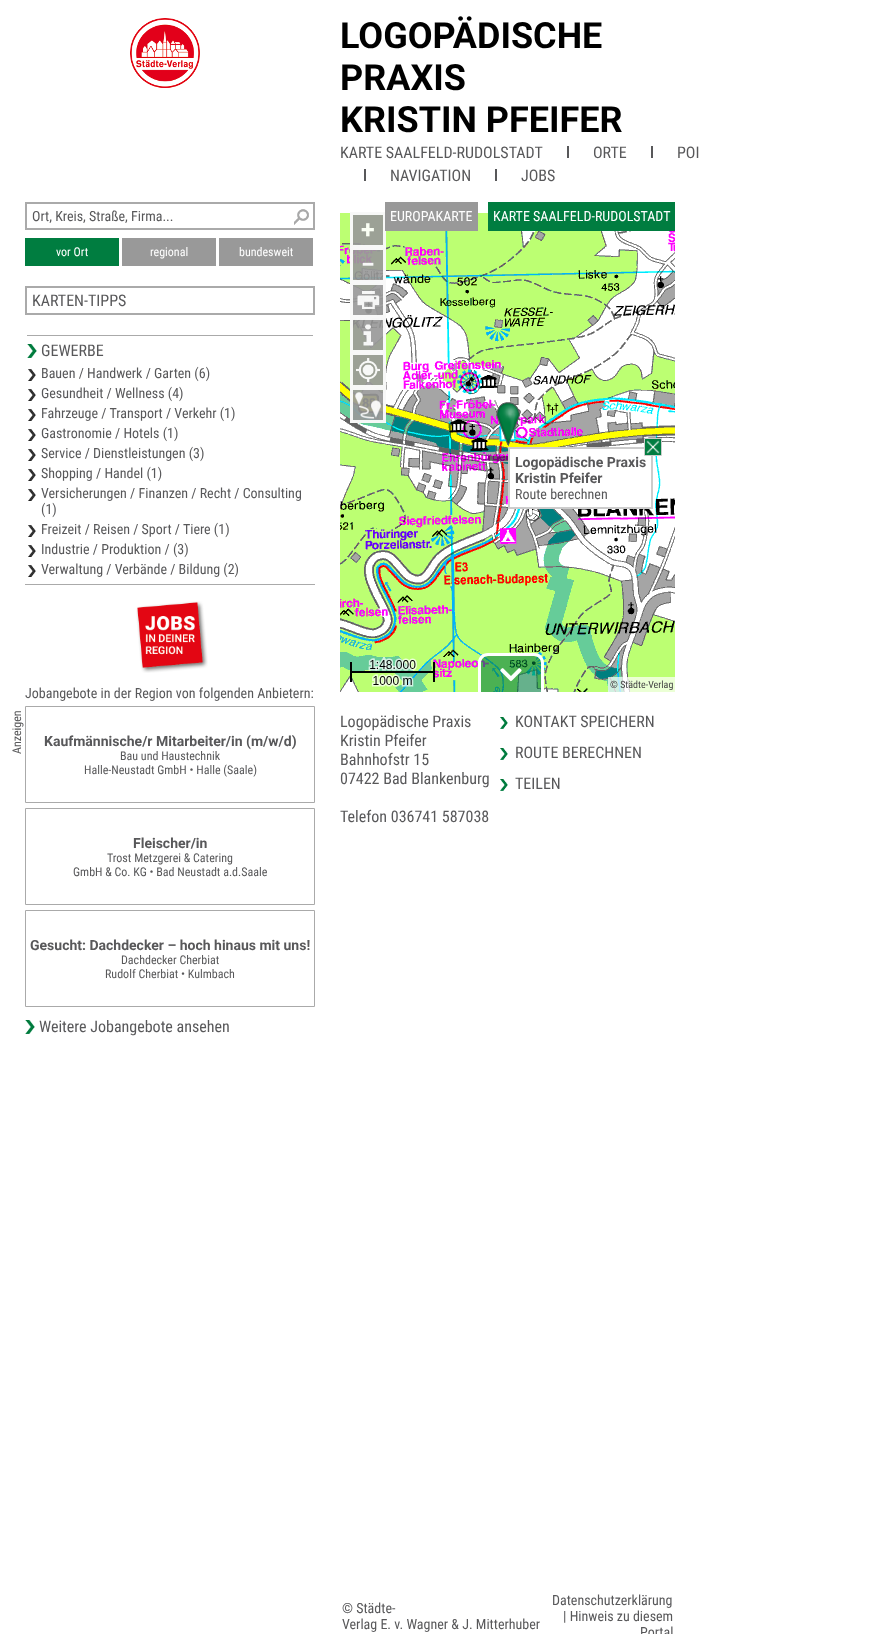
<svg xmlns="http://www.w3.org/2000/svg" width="870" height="1634">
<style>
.a{font:bold 36px Roboto;fill:#000}
.b{font:16px Roboto Condensed;fill:#58585a}
.c{font:14px Roboto Condensed;fill:#58585a}
.d{font:12px Roboto Condensed;fill:#fff}
.e{font:12px Roboto Condensed;fill:#58585a}
.f{font:bold 14px Roboto;fill:#58585a}
.g{font:14px Roboto Condensed;fill:#fff}
.h{font:bold 25px Roboto;fill:#fafff4}
.i{font:bold 25px Roboto;fill:#f7f7f7}
.j{font:10px Roboto Condensed;fill:#444}
</style>
<rect width="100%" height="100%" fill="#fff"/>
<image href="1.png" x="130" y="18" width="70" height="70"/>
<path fill="#58585a" d="M567 146h2v12H567z"/>
<path fill="#58585a" d="M651 146h2v12H651z"/>
<path fill="#58585a" d="M364 169h2v12H364z"/>
<path fill="#58585a" d="M495 169h2v12H495z"/>
<image href="2.png" x="294" y="209" width="15" height="16"/>
<path fill="none" stroke="#aaa" stroke-width="2" d="M26 203h288v26H26z"/>
<path fill="#007d40" d="M25 238h94v28H25z"/>
<path fill="#999" d="M122 238h94v28H122z"/>
<path fill="#999" d="M219 238h94v28H219z"/>
<path fill="none" stroke="#aaa" stroke-width="2" d="M26 287h288v27H26z"/>
<image href="3.png" x="27" y="344" width="10" height="14"/>
<path fill="#aaa" d="M27 335h286v1H27z"/>
<image href="4.png" x="28" y="369" width="8" height="12"/>
<image href="4.png" x="28" y="389" width="8" height="12"/>
<image href="4.png" x="28" y="409" width="8" height="12"/>
<image href="4.png" x="28" y="429" width="8" height="12"/>
<image href="4.png" x="28" y="449" width="8" height="12"/>
<image href="4.png" x="28" y="469" width="8" height="12"/>
<image href="4.png" x="28" y="489" width="8" height="12"/>
<image href="4.png" x="28" y="525" width="8" height="12"/>
<image href="4.png" x="28" y="545" width="8" height="12"/>
<image href="4.png" x="28" y="565" width="8" height="12"/>
<image href="5.png" x="136" y="601" width="72" height="72"/>
<path fill="#aaa" d="M25 584h290v1H25z"/>
<path fill="none" stroke="#aaa" d="M25.5 706.5h289v96H25.5z"/>
<path fill="none" stroke="#aaa" d="M25.5 808.5h289v96H25.5z"/>
<path fill="none" stroke="#aaa" d="M25.5 910.5h289v96H25.5z"/>
<image href="3.png" x="25" y="1020" width="10" height="14"/>
<image href="6.png" x="340" y="213" width="54" height="256"/>
<image href="7.png" x="394" y="213" width="256" height="256"/>
<path fill="#999999eb" d="M350 212h36v36H350z"/>
<path fill="none" stroke="#ffffffeb" stroke-width="3" d="M351.5 213.5h33v33H351.5z"/>
<path fill="#999" d="M385 202h93v29H385z"/>
<path fill="#007d40" d="M488 202h187v29H488z"/>
<image href="8.png" x="650" y="231" width="25" height="238"/>
<image href="9.png" x="340" y="469" width="54" height="223"/>
<image href="10.png" x="394" y="469" width="256" height="223"/>
<image href="11.png" x="650" y="469" width="25" height="223"/>
<path fill="#999999eb" d="M350 247h36v36H350z"/>
<path fill="none" stroke="#ffffffeb" stroke-width="3" d="M351.5 248.5h33v33H351.5z"/>
<path fill="#999999eb" d="M350 282h36v36H350z"/>
<path fill="none" stroke="#ffffffeb" stroke-width="3" d="M351.5 283.5h33v33H351.5z"/>
<image href="12.png" x="357" y="291" width="23" height="18"/>
<path fill="#999999eb" d="M350 317h36v36H350z"/>
<path fill="none" stroke="#ffffffeb" stroke-width="3" d="M351.5 318.5h33v33H351.5z"/>
<image href="13.png" x="363" y="324" width="11" height="22"/>
<path fill="#999999eb" d="M350 352h36v36H350z"/>
<path fill="none" stroke="#ffffffeb" stroke-width="3" d="M351.5 353.5h33v33H351.5z"/>
<image href="14.png" x="356" y="358" width="24" height="24"/>
<path fill="#999999eb" d="M350 387h36v36H350z"/>
<path fill="none" stroke="#ffffffeb" stroke-width="3" d="M351.5 388.5h33v33H351.5z"/>
<image href="15.png" x="355" y="392" width="26" height="27"/>
<image href="16.png" x="496" y="402" width="24" height="44"/>
<path fill="#fff" stroke="#ccc" stroke-width="2" d="M509 448h143v60H509z"/>
<image href="17.png" x="645" y="439" width="16" height="16"/>
<path fill="none" stroke="#ccc" d="M644.5 438.5h17v17H644.5z"/>
<image href="18.png" x="350" y="657" width="85" height="30"/>
<path fill="#007d4099" d="M488 656h46c4 0 7 3 7 7v29h-60v-29c0-4 3-7 7-7z"/>
<path fill="#fff" fill-rule="evenodd" d="M488 653h46c6 0 10 4 10 10v29h-66v-29c0-6 4-10 10-10zm0 3h46c4 0 7 3 7 7v29h-60v-29c0-4 3-7 7-7z"/>
<image href="19.png" x="500" y="668" width="22" height="14"/>
<path fill="#ffffffb3" d="M608 677h67v15H608z"/>
<image href="20.png" x="500" y="717" width="8" height="12"/>
<image href="20.png" x="500" y="748" width="8" height="12"/>
<image href="20.png" x="500" y="779" width="8" height="12"/>
<text class="a" x="340" y="48">LOGOPÄDISCHE</text>
<text class="a" x="340" y="90">PRAXIS</text>
<text class="a" x="340" y="132">KRISTIN PFEIFER</text>
<text class="b" x="340" y="158">KARTE SAALFELD-RUDOLSTADT</text>
<text class="b" x="593" y="158">ORTE</text>
<text class="b" x="677" y="158">POI</text>
<text class="b" x="390" y="181">NAVIGATION</text>
<text class="b" x="521" y="181">JOBS</text>
<text class="c" x="32" y="221">Ort, Kreis, Straße, Firma...</text>
<text class="d" x="56" y="256">vor Ort</text>
<text class="d" x="150" y="256">regional</text>
<text class="d" x="239" y="256">bundesweit</text>
<text class="b" x="32" y="306">KARTEN-TIPPS</text>
<text class="b" x="41" y="356">GEWERBE</text>
<text class="c" x="41" y="378">Bauen / Handwerk / Garten (6)</text>
<text class="c" x="41" y="398">Gesundheit / Wellness (4)</text>
<text class="c" x="41" y="418">Fahrzeuge / Transport / Verkehr (1)</text>
<text class="c" x="41" y="438">Gastronomie / Hotels (1)</text>
<text class="c" x="41" y="458">Service / Dienstleistungen (3)</text>
<text class="c" x="41" y="478">Shopping / Handel (1)</text>
<text class="c" x="41" y="498">Versicherungen / Finanzen / Recht / Consulting</text>
<text class="c" x="41" y="514">(1)</text>
<text class="c" x="41" y="534">Freizeit / Reisen / Sport / Tiere (1)</text>
<text class="c" x="41" y="554">Industrie / Produktion / (3)</text>
<text class="c" x="41" y="574">Verwaltung / Verbände / Bildung (2)</text>
<text class="c" x="25" y="698">Jobangebote in der Region von folgenden Anbietern:</text>
<text class="e" x="21" y="754" transform="rotate(-90 21 754)">Anzeigen</text>
<text class="f" x="44" y="746">Kaufmännische/r Mitarbeiter/in (m/w/d)</text>
<text class="e" x="120" y="760">Bau und Haustechnik</text>
<text class="e" x="84" y="774">Halle-Neustadt GmbH • Halle (Saale)</text>
<text class="f" x="133" y="848">Fleischer/in</text>
<text class="e" x="107" y="862">Trost Metzgerei &amp; Catering</text>
<text class="e" x="73" y="876">GmbH &amp; Co. KG • Bad Neustadt a.d.Saale</text>
<text class="f" x="30" y="950">Gesucht: Dachdecker – hoch hinaus mit uns!</text>
<text class="e" x="121" y="964">Dachdecker Cherbiat</text>
<text class="e" x="105" y="978">Rudolf Cherbiat • Kulmbach</text>
<text class="b" x="39" y="1032">Weitere Jobangebote ansehen</text>
<text class="g" x="390" y="221">EUROPAKARTE</text>
<text class="g" x="493" y="221">KARTE SAALFELD-RUDOLSTADT</text>
<text class="h" x="361" y="238">+</text>
<text class="i" x="361" y="273">−</text>
<text class="f" x="515" y="467">Logopädische Praxis</text>
<text class="f" x="515" y="483">Kristin Pfeifer</text>
<text class="c" x="515" y="499">Route berechnen</text>
<text class="j" x="610" y="688">© Städte-Verlag</text>
<text class="b" x="340" y="727">Logopädische Praxis</text>
<text class="b" x="340" y="746">Kristin Pfeifer</text>
<text class="b" x="340" y="765">Bahnhofstr 15</text>
<text class="b" x="340" y="784">07422 Bad Blankenburg</text>
<text class="b" x="340" y="822">Telefon 036741 587038</text>
<text class="b" x="515" y="727">KONTAKT SPEICHERN</text>
<text class="b" x="515" y="758">ROUTE BERECHNEN</text>
<text class="b" x="515" y="789">TEILEN</text>
<text class="c" x="342" y="1613">© Städte-</text>
<text class="c" x="342" y="1629">Verlag E. v. Wagner &amp; J. Mitterhuber</text>
<text class="c" x="552" y="1605">Datenschutzerklärung</text>
<text class="c" x="563" y="1621">| Hinweis zu diesem</text>
<text class="c" x="640" y="1637">Portal</text>
</svg>
